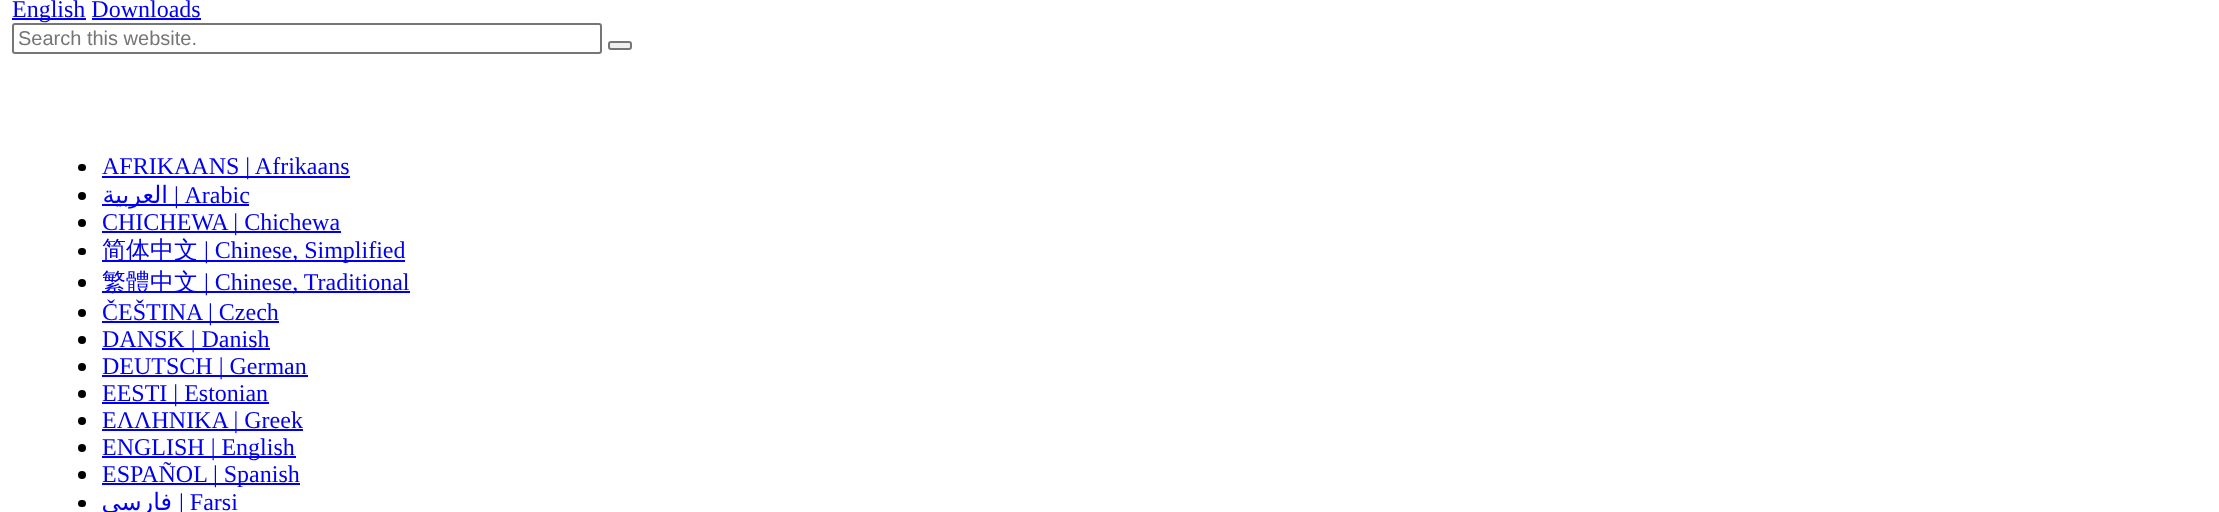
<svg xmlns="http://www.w3.org/2000/svg" width="2219" height="512">
<style>
.a{font:24px Liberation Serif;fill:#00e}
.b{font:20px Liberation Sans;fill:#757575}
.c{font:24px DejaVu Sans;direction:rtl;fill:#00e}
.d{font:500 24px WenQuanYi Zen Hei;fill:#00e}
</style>
<rect width="100%" height="100%" fill="#fff"/>
<path fill="#00e" d="M12 18h74v2H12z"/>
<path fill="#00e" d="M92 18h109v2H92z"/>
<rect fill="none" stroke="#767676" stroke-width="2" x="13" y="24" width="588" height="29" rx="2"/>
<rect fill="#efefef" stroke="#767676" stroke-width="2" x="609" y="42" width="22" height="7" rx="2"/>
<rect fill="#000" x="78" y="164" width="8" height="7" rx="3.5"/>
<path fill="#00e" d="M102 176h248v2H102z"/>
<circle fill="#000" cx="82" cy="196" r="4"/>
<path fill="#00e" d="M102 204h147v2H102z"/>
<circle fill="#000" cx="82" cy="223" r="4"/>
<path fill="#00e" d="M102 231h239v2H102z"/>
<rect fill="#000" x="78" y="248" width="8" height="7" rx="3.5"/>
<path fill="#00e" d="M102 260h303v2H102z"/>
<circle fill="#000" cx="82" cy="283" r="4"/>
<path fill="#00e" d="M102 291h308v2H102z"/>
<circle fill="#000" cx="82" cy="313" r="4"/>
<path fill="#00e" d="M102 321h177v2H102z"/>
<circle fill="#000" cx="82" cy="340" r="4"/>
<path fill="#00e" d="M102 348h168v2H102z"/>
<circle fill="#000" cx="82" cy="367" r="4"/>
<path fill="#00e" d="M102 375h206v2H102z"/>
<circle fill="#000" cx="82" cy="394" r="4"/>
<path fill="#00e" d="M102 402h167v2H102z"/>
<circle fill="#000" cx="82" cy="421" r="4"/>
<path fill="#00e" d="M102 429h201v2H102z"/>
<circle fill="#000" cx="82" cy="448" r="4"/>
<path fill="#00e" d="M102 456h194v2H102z"/>
<circle fill="#000" cx="82" cy="475" r="4"/>
<path fill="#00e" d="M102 483h198v2H102z"/>
<rect fill="#000" x="78" y="500" width="8" height="7" rx="3.5"/>
<text class="a" x="12" y="17">English Downloads</text>
<text class="b" x="18" y="45">Search this website.</text>
<text class="a" x="102" y="174">AFRIKAANS | Afrikaans</text>
<text class="c" x="168" y="203">العربية</text>
<text class="a" x="174" y="203" word-spacing="1">| Arabic</text>
<text class="a" x="102" y="230">CHICHEWA | Chichewa</text>
<text class="d" x="102" y="258">简体中文</text>
<text class="a" x="204" y="258">| Chinese, Simplified</text>
<text class="d" x="102" y="290">繁體中文</text>
<text class="a" x="204" y="290">| Chinese, Traditional</text>
<text class="a" x="102" y="320">ČEŠTINA | Czech</text>
<text class="a" x="102" y="347">DANSK | Danish</text>
<text class="a" x="102" y="374">DEUTSCH | German</text>
<text class="a" x="102" y="401">EESTI | Estonian</text>
<text class="a" x="102" y="428">ΕΛΛΗΝΙΚΑ | Greek</text>
<text class="a" x="102" y="455">ENGLISH | English</text>
<text class="a" x="102" y="482">ESPAÑOL | Spanish</text>
<text class="c" x="172" y="510">فارسی</text>
<text class="a" x="179" y="510">| Farsi</text>
</svg>
